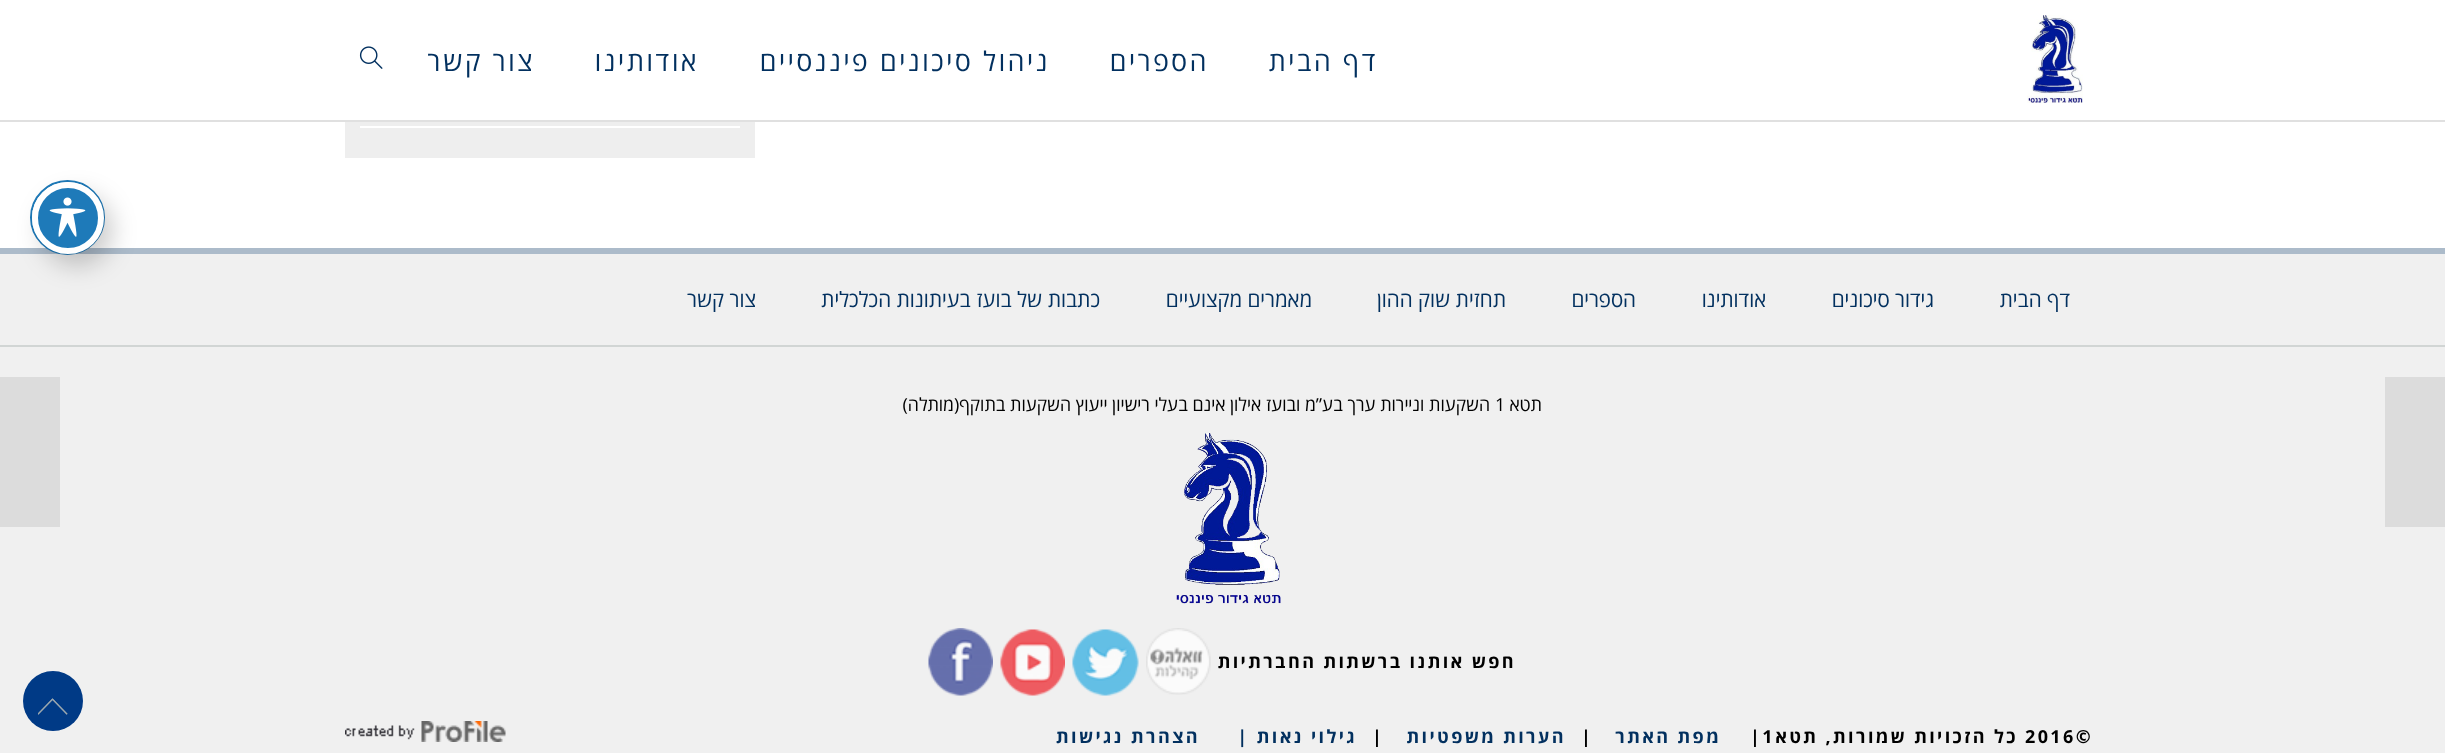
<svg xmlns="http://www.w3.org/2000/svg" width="2445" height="753">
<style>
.a{font:27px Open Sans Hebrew;letter-spacing:2.7px;direction:rtl;fill:#02305f}
.b{font:21px Open Sans Hebrew;direction:rtl;fill:#02305f}
.c{font:18px Open Sans Hebrew;direction:rtl;fill:#000}
.d{font:18px Open Sans Hebrew;fill:#000}
.e{font:bold 18px Open Sans Hebrew;letter-spacing:2.4px;direction:rtl;fill:#000}
.f{font:bold 18px Open Sans Hebrew;letter-spacing:2.4px;fill:#000}
.g{font:bold 18px Open Sans Hebrew;letter-spacing:2.4px;direction:rtl;fill:#02305f}
</style>
<rect width="100%" height="100%" fill="#fff"/>
<path fill="#e0e0e0" d="M0 120h2445v2H0z"/>
<image href="1.png" x="2027" y="15" width="56" height="88"/>
<image href="2.png" x="359" y="46" width="24" height="23"/>
<path fill="#eee" d="M345 122h410v36H345z"/>
<path fill="#fff" d="M360 126h380v2H360z"/>
<path fill="#f0f0f0" d="M0 347h2445v406H0z"/>
<path fill="#dcdcdc" d="M2385 377h60v150H2385z"/>
<path fill="#dcdcdc" d="M0 377h60v150H0z"/>
<path fill="#f0f0f0" d="M0 254h2445v91H0z"/>
<path fill="#acbbca" d="M0 248h2445v6H0z"/>
<path fill="#d1d5d4" d="M0 345h2445v2H0z"/>
<image href="3.png" x="1176" y="433" width="105" height="171"/>
<image href="4.png" x="1146" y="628" width="65" height="67"/>
<image href="5.png" x="1072" y="629" width="67" height="67"/>
<image href="6.png" x="1000" y="629" width="65" height="67"/>
<image href="7.png" x="928" y="628" width="65" height="68"/>
<image href="8.png" x="345" y="721" width="161" height="21"/>
<circle fill="#003a86" cx="53" cy="701" r="30"/>
<image href="9.png" x="38" y="698" width="30" height="17"/>
<circle fill="none" stroke="#1e7ab9" stroke-width="2" cx="67.5" cy="217.5" r="36.5"/>
<rect fill="#00000033" filter="blur(12px)" x="41" y="194" width="72" height="72" rx="36"/>
<circle fill="#1e7ab9" stroke="#fff" stroke-width="6" cx="68" cy="218" r="33"/>
<image href="10.png" x="49" y="197" width="37" height="40"/>
<text class="a" x="1378" y="71">דף הבית</text>
<text class="a" x="1209" y="71">הספרים</text>
<text class="a" x="1050" y="71">ניהול סיכונים פיננסיים</text>
<text class="a" x="699" y="71">אודותינו</text>
<text class="a" x="535" y="71">צור קשר</text>
<text class="b" x="2070" y="307">דף הבית</text>
<text class="b" x="1934" y="307">גידור סיכונים</text>
<text class="b" x="1766" y="307">אודותינו</text>
<text class="b" x="1636" y="307">הספרים</text>
<text class="b" x="1506" y="307">תחזית שוק ההון</text>
<text class="b" x="1312" y="307">מאמרים מקצועיים</text>
<text class="b" x="1100" y="307">כתבות של בועז בעיתונות הכלכלית</text>
<text class="b" x="756" y="307">צור קשר</text>
<text class="c" x="1542" y="411">תטא</text>
<text class="d" x="1495" y="411">1</text>
<text class="c" x="1490" y="411">השקעות וניירות ערך בע”מ ובועז אילון אינם בעלי רישיון ייעוץ השקעות בתוקף(מותלה)</text>
<text class="e" x="1516" y="668">חפש אותנו ברשתות החברתיות</text>
<text class="f" x="2025" y="743">2016©</text>
<text class="e" x="2018" y="743">כל הזכויות שמורות, תטא</text>
<text class="f" x="1750" y="743">|1</text>
<text class="g" x="1721" y="743">מפת האתר</text>
<text class="f" x="1581" y="743">|</text>
<text class="g" x="1566" y="743">הערות משפטיות</text>
<text class="f" x="1372" y="743">|</text>
<text class="g" x="1357" y="743">גילוי נאות |</text>
<text class="g" x="1200" y="743">הצהרת נגישות</text>
</svg>
